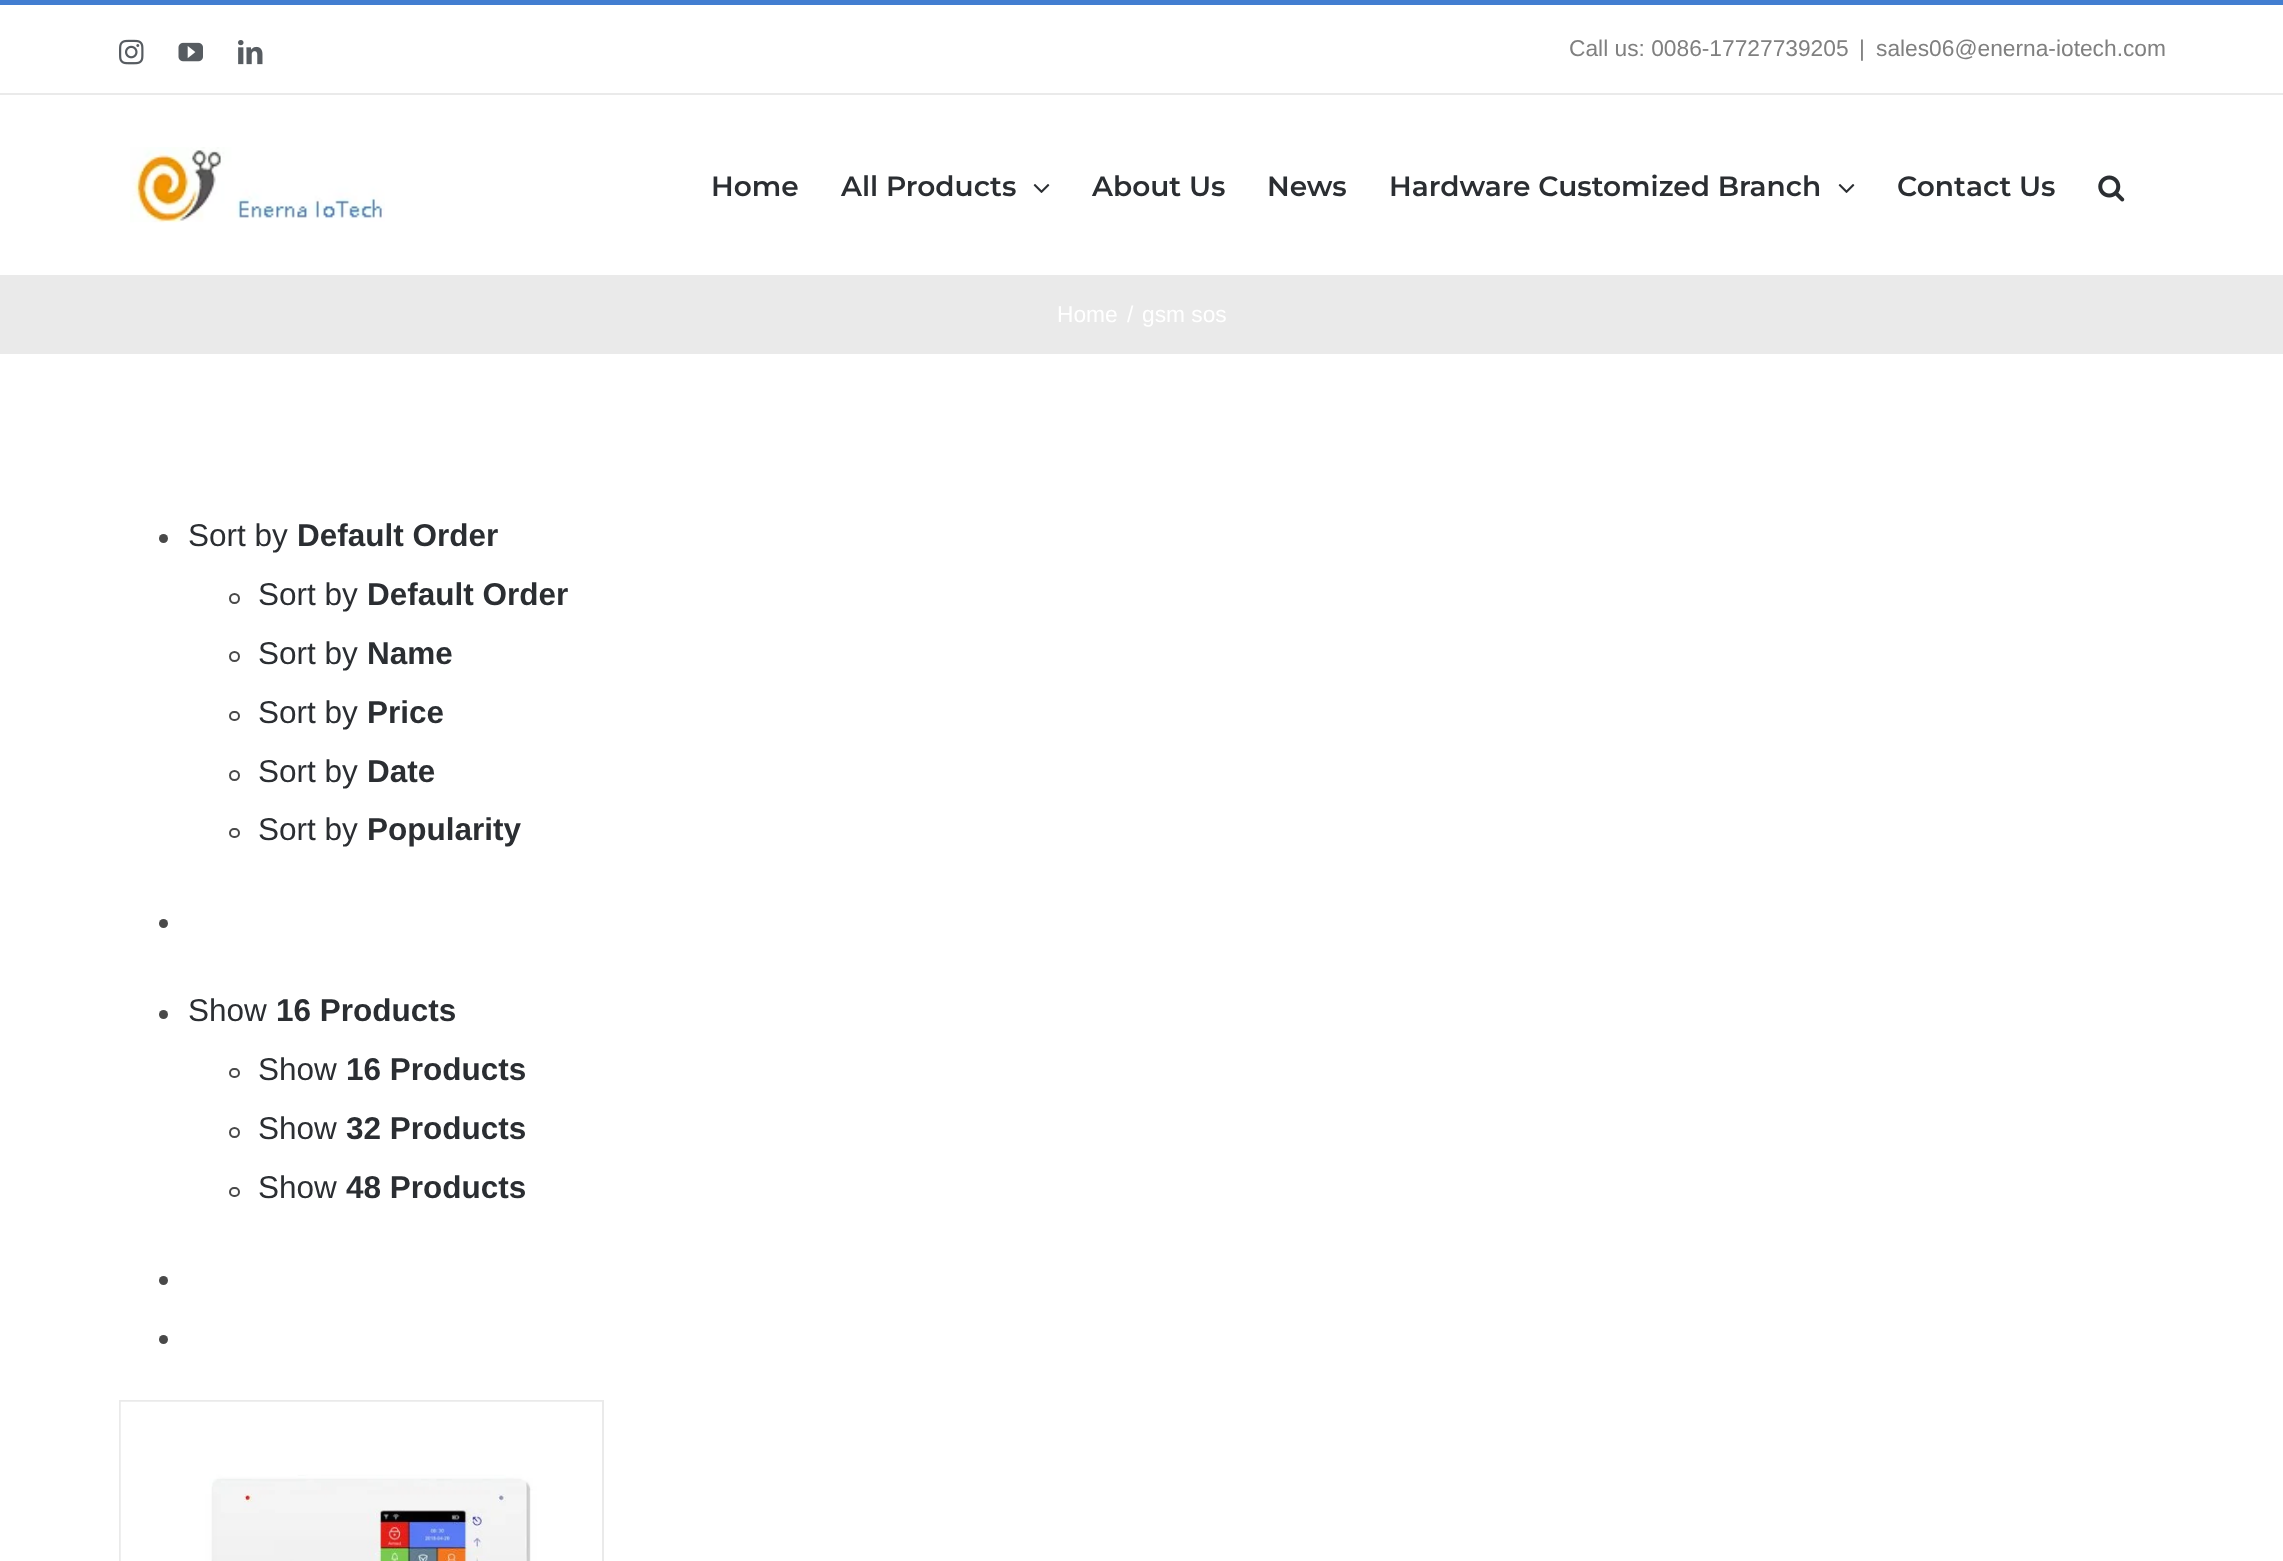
<svg xmlns="http://www.w3.org/2000/svg" width="2283" height="1561">
<style>
.a{font:22.75px Liberation Sans;fill:#808080}
.b{font:100 28px Montserrat;fill:#2b2e32}
.c{font:22.75px Liberation Sans;fill:#fff}
.d{font:31.5px Liberation Sans;fill:#2b2e32}
.e{font:bold 31.5px Liberation Sans;fill:#2b2e32}
</style>
<rect width="100%" height="100%" fill="#fff"/>
<path fill="#427ed1" d="M0 0h2283v5H0z"/>
<path fill="#eaeaea" d="M0 93h2283v2H0z"/>
<image href="1.png" x="119" y="39" width="25" height="26"/>
<image href="2.png" x="178" y="42" width="25" height="20"/>
<image href="3.png" x="238" y="40" width="25" height="25"/>
<image href="4.png" x="130" y="147" width="255" height="76"/>
<image href="5.png" x="1033" y="184" width="17" height="9"/>
<image href="5.png" x="1838" y="184" width="17" height="9"/>
<image href="6.png" x="2098" y="175" width="27" height="27"/>
<path fill="#eaeaea" d="M0 275h2283v79H0z"/>
<circle fill="#494949" cx="163.5" cy="538.5" r="4.5"/>
<circle fill="none" stroke="#494949" stroke-width="2" cx="234.5" cy="598.5" r="4.5"/>
<circle fill="none" stroke="#494949" stroke-width="2" cx="234.5" cy="656.5" r="4.5"/>
<rect fill="none" stroke="#494949" stroke-width="2" x="230" y="712" width="9" height="8" rx="4"/>
<circle fill="none" stroke="#494949" stroke-width="2" cx="234.5" cy="775.5" r="4.5"/>
<rect fill="none" stroke="#494949" stroke-width="2" x="230" y="829" width="9" height="8" rx="4"/>
<circle fill="#494949" cx="163.5" cy="923.5" r="4.5"/>
<circle fill="#494949" cx="163.5" cy="1014.5" r="4.5"/>
<rect fill="none" stroke="#494949" stroke-width="2" x="230" y="1069" width="9" height="8" rx="4"/>
<circle fill="none" stroke="#494949" stroke-width="2" cx="234.5" cy="1132.5" r="4.5"/>
<rect fill="none" stroke="#494949" stroke-width="2" x="230" y="1188" width="9" height="8" rx="4"/>
<circle fill="#494949" cx="163.5" cy="1280.5" r="4.5"/>
<circle fill="#494949" cx="163.5" cy="1339.5" r="4.5"/>
<path fill="#eaeaea" d="M119 1400h485v2H119z"/>
<path fill="#eaeaea" d="M602 1400h2v161H602z"/>
<path fill="#eaeaea" d="M119 1400h2v161H119z"/>
<image href="7.png" x="120" y="1401" width="482" height="160"/>
<text class="a" x="1569" y="56">Call us: 0086-17727739205</text>
<text class="a" x="1859" y="56">|</text>
<text class="a" x="1876" y="56">sales06@enerna-iotech.com</text>
<text class="b" x="711" y="196">Home</text>
<text class="b" x="841" y="196">All Products</text>
<text class="b" x="1092" y="196">About Us</text>
<text class="b" x="1267" y="196">News</text>
<text class="b" x="1389" y="196">Hardware Customized Branch</text>
<text class="b" x="1897" y="196">Contact Us</text>
<text class="c" x="1057" y="322">Home</text>
<text class="c" x="1127" y="322">/</text>
<text class="c" x="1142" y="322">gsm sos</text>
<text class="d" x="188" y="546">Sort by</text>
<text class="e" x="297" y="546">Default Order</text>
<text class="d" x="258" y="605">Sort by</text>
<text class="e" x="367" y="605">Default Order</text>
<text class="d" x="258" y="664">Sort by</text>
<text class="e" x="367" y="664">Name</text>
<text class="d" x="258" y="723">Sort by</text>
<text class="e" x="367" y="723">Price</text>
<text class="d" x="258" y="782">Sort by</text>
<text class="e" x="367" y="782">Date</text>
<text class="d" x="258" y="840">Sort by</text>
<text class="e" x="367" y="840">Popularity</text>
<text class="d" x="188" y="1021">Show</text>
<text class="e" x="276" y="1021">16 Products</text>
<text class="d" x="258" y="1080">Show</text>
<text class="e" x="346" y="1080">16 Products</text>
<text class="d" x="258" y="1139">Show</text>
<text class="e" x="346" y="1139">32 Products</text>
<text class="d" x="258" y="1198">Show</text>
<text class="e" x="346" y="1198">48 Products</text>
</svg>
